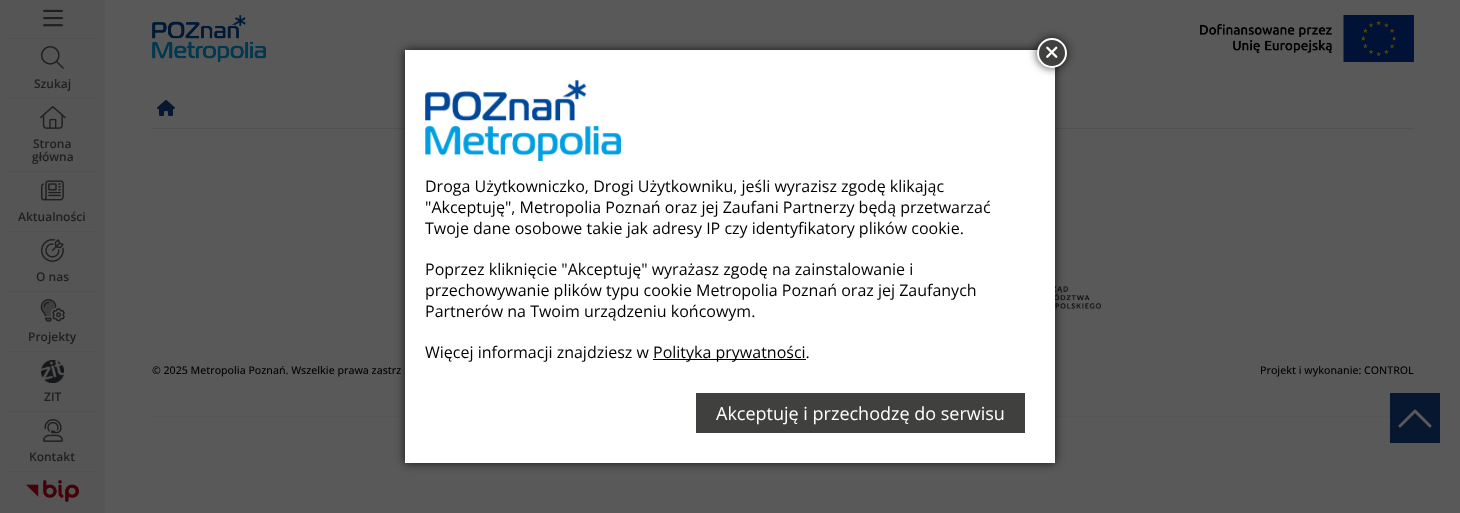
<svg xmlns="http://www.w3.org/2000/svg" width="1460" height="513">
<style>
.a{font:600 12px Open Sans;fill:#1f1f1f}
.b{font:16px Open Sans;fill:#000}
.c{font:18px Open Sans;fill:#fff}
.d{font:500 10.6px Open Sans;fill:#000}
</style>
<rect width="100%" height="100%" fill="#595959"/>
<image href="1.png" x="152" y="15" width="114" height="47"/>
<image href="2.png" x="1200" y="15" width="214" height="47"/>
<path fill="#555" d="M0 0h105v513H0z"/>
<path fill="#515152" d="M8 38h89v1H8z"/>
<image href="3.png" x="43" y="9" width="20" height="18"/>
<path fill="#515152" d="M8 98h89v1H8z"/>
<image href="4.png" x="41" y="46" width="23" height="23"/>
<path fill="#515152" d="M8 171h89v1H8z"/>
<image href="5.png" x="40" y="106" width="26" height="23"/>
<path fill="#515152" d="M8 231h89v1H8z"/>
<image href="6.png" x="41" y="180" width="23" height="21"/>
<path fill="#515152" d="M8 291h89v1H8z"/>
<image href="7.png" x="41" y="239" width="23" height="23"/>
<path fill="#515152" d="M8 351h89v1H8z"/>
<image href="8.png" x="40" y="299" width="25" height="23"/>
<image href="9.png" x="42" y="300" width="13" height="21"/>
<path fill="#515152" d="M8 411h89v1H8z"/>
<image href="10.png" x="41" y="360" width="23" height="23"/>
<path fill="#515152" d="M8 471h89v1H8z"/>
<image href="11.png" x="43" y="419" width="20" height="23"/>
<image href="12.png" x="26" y="480" width="53" height="22"/>
<path fill="#515152" d="M152 128h1262v1H152z"/>
<image href="16.png" x="1055" y="286" width="46" height="23"/>
<path fill="#565656" d="M152 416h1238v1H152z"/>
<path fill="#000000bf" filter="blur(5px)" d="M405 50h650v413H405z"/>
<path fill="#fff" d="M405 50h650v413H405z"/>
<rect fill="#000000bf" filter="blur(5px)" x="1037" y="38" width="30" height="30" rx="15"/>
<circle fill="#40403e" stroke="#fff" stroke-width="2" cx="1052" cy="53" r="14"/>
<image href="13.png" x="1046" y="46" width="12" height="12"/>
<image href="14.png" x="425" y="79" width="196" height="82"/>
<path fill="#000" d="M653 359h153v1H653z"/>
<path fill="#40403e" d="M696 393h329v40H696z"/>
<image href="15.png" x="157" y="100" width="18" height="16"/>
<path fill="#06172f" d="M1390 393h50v50H1390z"/>
<image href="17.png" x="1398" y="409" width="34" height="19"/>
<text class="a" x="34" y="88">Szukaj</text>
<text class="a" x="33" y="148">Strona</text>
<text class="a" x="32" y="161">główna</text>
<text class="a" x="18" y="221">Aktualności</text>
<text class="a" x="36" y="281">O nas</text>
<text class="a" x="28" y="341">Projekty</text>
<text class="a" x="44" y="401">ZIT</text>
<text class="a" x="29" y="461">Kontakt</text>
<text class="b" x="425" y="192">Droga Użytkowniczko, Drogi Użytkowniku, jeśli wyrazisz zgodę klikając</text>
<text class="b" x="425" y="213">"Akceptuję", Metropolia Poznań oraz jej Zaufani Partnerzy będą przetwarzać</text>
<text class="b" x="425" y="234">Twoje dane osobowe takie jak adresy IP czy identyfikatory plików cookie.</text>
<text class="b" x="425" y="275">Poprzez kliknięcie "Akceptuję" wyrażasz zgodę na zainstalowanie i</text>
<text class="b" x="425" y="296">przechowywanie plików typu cookie Metropolia Poznań oraz jej Zaufanych</text>
<text class="b" x="425" y="317">Partnerów na Twoim urządzeniu końcowym.</text>
<text class="b" x="425" y="358">Więcej informacji znajdziesz w</text>
<text class="b" x="653" y="358">Polityka prywatności.</text>
<text class="c" x="716" y="420">Akceptuję i przechodzę do serwisu</text>
<text class="d" x="152" y="374">© 2025 Metropolia Poznań. Wszelkie prawa zastrz</text>
<text class="d" x="1260" y="374">Projekt i wykonanie: CONTROL</text>
</svg>
